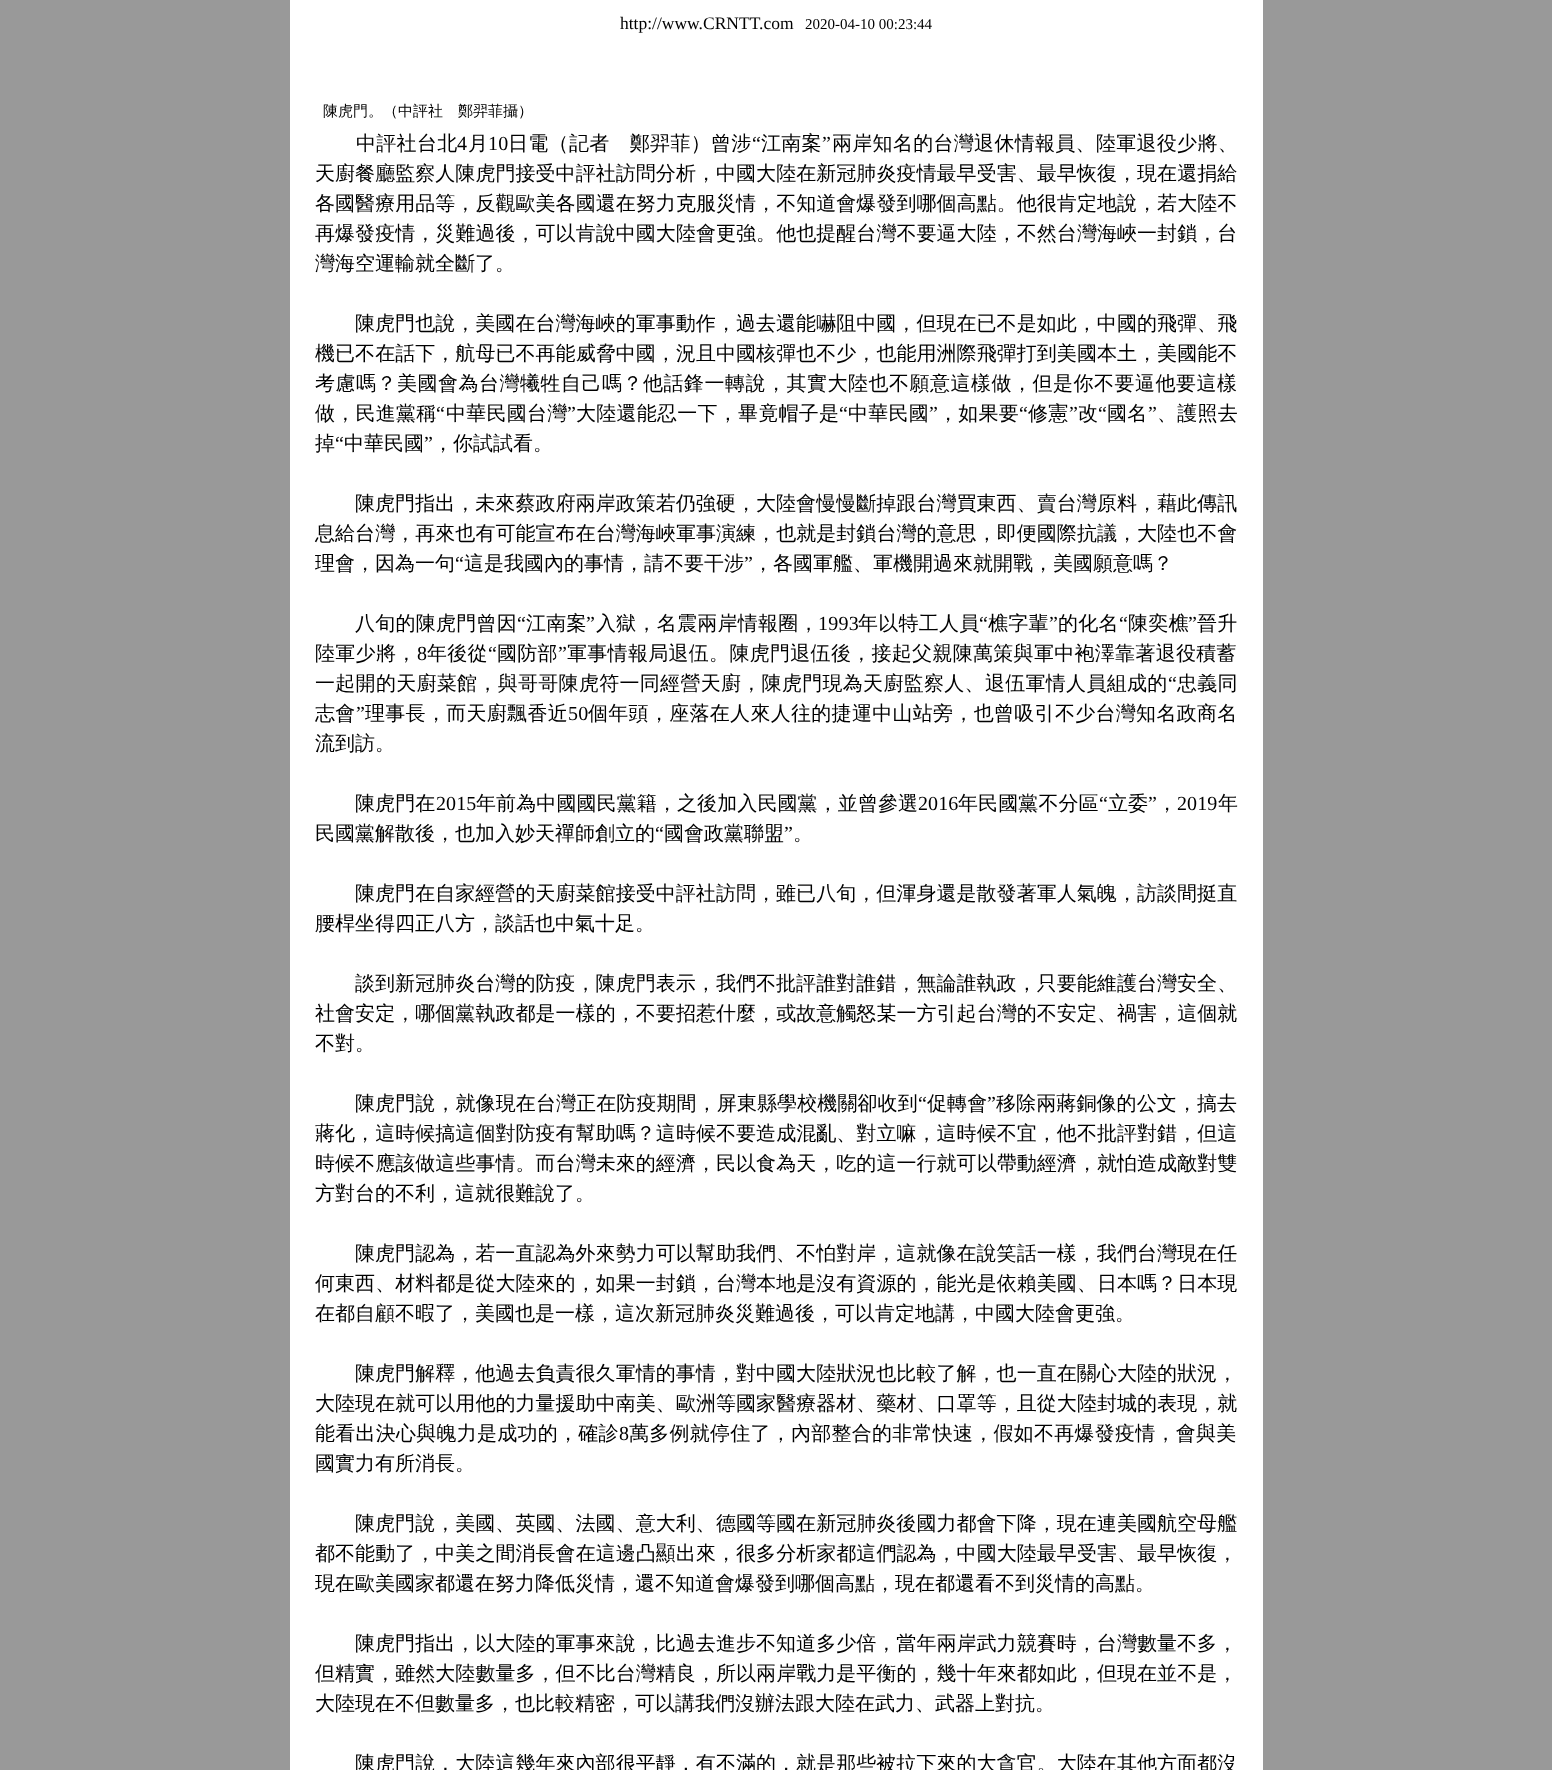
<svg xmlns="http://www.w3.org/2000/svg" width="1552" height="1770">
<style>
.a{font:17.5px Liberation Serif;fill:#000}
.b{font:15px Liberation Serif;fill:#000}
.c{font:500 15px WenQuanYi Zen Hei;fill:#000}
.d{font:500 20px WenQuanYi Zen Hei;letter-spacing:0.3px;fill:#000}
.e{font:20px Liberation Serif;letter-spacing:0.3px;fill:#000}
.f{font:500 20px WenQuanYi Zen Hei;letter-spacing:0.05px;fill:#000}
.g{font:500 20px WenQuanYi Zen Hei;fill:#000}
.h{font:500 20px WenQuanYi Zen Hei;letter-spacing:0.5px;fill:#000}
.i{font:500 20px WenQuanYi Zen Hei;letter-spacing:0.25px;fill:#000}
.j{font:20px Liberation Serif;letter-spacing:0.25px;fill:#000}
.k{font:20px Liberation Serif;fill:#000}
.l{font:500 20px WenQuanYi Zen Hei;letter-spacing:0.1px;fill:#000}
.m{font:20px Liberation Serif;letter-spacing:0.1px;fill:#000}
</style>
<rect width="100%" height="100%" fill="#999"/>
<path fill="#fff" d="M290 0h973v1770H290z"/>
<text class="a" x="620" y="29">http://www.CRNTT.com</text>
<text class="b" x="805" y="29">2020-04-10 00:23:44</text>
<text class="c" x="323" y="116">陳虎門。（中評社　鄭羿菲攝）</text>
<text class="d" x="356" y="150">中評社台北</text>
<text class="e" x="457" y="150">4</text>
<text class="d" x="468" y="150">月</text>
<text class="e" x="488" y="150">10</text>
<text class="d" x="508" y="150">日電（記者　鄭羿菲）曾涉</text>
<text class="e" x="752" y="150">“</text>
<text class="d" x="761" y="150">江南案</text>
<text class="e" x="822" y="150">”</text>
<text class="d" x="832" y="150">兩岸知名的台灣退休情報員、陸軍退役少將、</text>
<text class="f" x="315" y="180">天廚餐廳監察人陳虎門接受中評社訪問分析，中國大陸在新冠肺炎疫情最早受害、最早恢復，現在還捐給</text>
<text class="f" x="315" y="210">各國醫療用品等，反觀歐美各國還在努力克服災情，不知道會爆發到哪個高點。他很肯定地說，若大陸不</text>
<text class="f" x="315" y="240">再爆發疫情，災難過後，可以肯說中國大陸會更強。他也提醒台灣不要逼大陸，不然台灣海峽一封鎖，台</text>
<text class="g" x="315" y="270">灣海空運輸就全斷了。</text>
<text class="f" x="355" y="330">陳虎門也說，美國在台灣海峽的軍事動作，過去還能嚇阻中國，但現在已不是如此，中國的飛彈、飛</text>
<text class="f" x="315" y="360">機已不在話下，航母已不再能威脅中國，況且中國核彈也不少，也能用洲際飛彈打到美國本土，美國能不</text>
<text class="h" x="315" y="390">考慮嗎？美國會為台灣犧牲自己嗎？他話鋒一轉說，其實大陸也不願意這樣做，但是你不要逼他要這樣</text>
<text class="i" x="315" y="420">做，民進黨稱</text>
<text class="j" x="436" y="420">“</text>
<text class="i" x="446" y="420">中華民國台灣</text>
<text class="j" x="567" y="420">”</text>
<text class="i" x="576" y="420">大陸還能忍一下，畢竟帽子是</text>
<text class="j" x="839" y="420">“</text>
<text class="i" x="848" y="420">中華民國</text>
<text class="j" x="929" y="420">”</text>
<text class="i" x="938" y="420">，如果要</text>
<text class="j" x="1019" y="420">“</text>
<text class="i" x="1028" y="420">修憲</text>
<text class="j" x="1069" y="420">”</text>
<text class="i" x="1078" y="420">改</text>
<text class="j" x="1098" y="420">“</text>
<text class="i" x="1107" y="420">國名</text>
<text class="j" x="1148" y="420">”</text>
<text class="i" x="1157" y="420">、護照去</text>
<text class="g" x="315" y="450">掉</text>
<text class="k" x="335" y="450">“</text>
<text class="g" x="344" y="450">中華民國</text>
<text class="k" x="424" y="450">”</text>
<text class="g" x="433" y="450">，你試試看。</text>
<text class="f" x="355" y="510">陳虎門指出，未來蔡政府兩岸政策若仍強硬，大陸會慢慢斷掉跟台灣買東西、賣台灣原料，藉此傳訊</text>
<text class="f" x="315" y="540">息給台灣，再來也有可能宣布在台灣海峽軍事演練，也就是封鎖台灣的意思，即便國際抗議，大陸也不會</text>
<text class="g" x="315" y="570">理會，因為一句</text>
<text class="k" x="455" y="570">“</text>
<text class="g" x="464" y="570">這是我國內的事情，請不要干涉</text>
<text class="k" x="744" y="570">”</text>
<text class="g" x="753" y="570">，各國軍艦、軍機開過來就開戰，美國願意嗎？</text>
<text class="i" x="355" y="630">八旬的陳虎門曾因</text>
<text class="j" x="517" y="630">“</text>
<text class="i" x="526" y="630">江南案</text>
<text class="j" x="586" y="630">”</text>
<text class="i" x="596" y="630">入獄，名震兩岸情報圈，</text>
<text class="j" x="818" y="630">1993</text>
<text class="i" x="858" y="630">年以特工人員</text>
<text class="j" x="979" y="630">“</text>
<text class="i" x="988" y="630">樵字輩</text>
<text class="j" x="1049" y="630">”</text>
<text class="i" x="1058" y="630">的化名</text>
<text class="j" x="1119" y="630">“</text>
<text class="i" x="1128" y="630">陳奕樵</text>
<text class="j" x="1188" y="630">”</text>
<text class="i" x="1197" y="630">晉升</text>
<text class="d" x="315" y="660">陸軍少將，</text>
<text class="e" x="417" y="660">8</text>
<text class="d" x="427" y="660">年後從</text>
<text class="e" x="488" y="660">“</text>
<text class="d" x="497" y="660">國防部</text>
<text class="e" x="558" y="660">”</text>
<text class="d" x="567" y="660">軍事情報局退伍。陳虎門退伍後，接起父親陳萬策與軍中袍澤靠著退役積蓄</text>
<text class="d" x="315" y="690">一起開的天廚菜館，與哥哥陳虎符一同經營天廚，陳虎門現為天廚監察人、退伍軍情人員組成的</text>
<text class="e" x="1168" y="690">“</text>
<text class="d" x="1177" y="690">忠義同</text>
<text class="d" x="315" y="720">志會</text>
<text class="e" x="356" y="720">”</text>
<text class="d" x="365" y="720">理事長，而天廚飄香近</text>
<text class="e" x="568" y="720">50</text>
<text class="d" x="588" y="720">個年頭，座落在人來人往的捷運中山站旁，也曾吸引不少台灣知名政商名</text>
<text class="g" x="315" y="750">流到訪。</text>
<text class="l" x="355" y="810">陳虎門在</text>
<text class="m" x="436" y="810">2015</text>
<text class="l" x="476" y="810">年前為中國國民黨籍，之後加入民國黨，並曾參選</text>
<text class="m" x="918" y="810">2016</text>
<text class="l" x="958" y="810">年民國黨不分區</text>
<text class="m" x="1099" y="810">“</text>
<text class="l" x="1108" y="810">立委</text>
<text class="m" x="1148" y="810">”</text>
<text class="l" x="1157" y="810">，</text>
<text class="m" x="1177" y="810">2019</text>
<text class="l" x="1218" y="810">年</text>
<text class="g" x="315" y="840">民國黨解散後，也加入妙天禪師創立的</text>
<text class="k" x="655" y="840">“</text>
<text class="g" x="664" y="840">國會政黨聯盟</text>
<text class="k" x="784" y="840">”</text>
<text class="g" x="793" y="840">。</text>
<text class="f" x="355" y="900">陳虎門在自家經營的天廚菜館接受中評社訪問，雖已八旬，但渾身還是散發著軍人氣魄，訪談間挺直</text>
<text class="g" x="315" y="930">腰桿坐得四正八方，談話也中氣十足。</text>
<text class="f" x="355" y="990">談到新冠肺炎台灣的防疫，陳虎門表示，我們不批評誰對誰錯，無論誰執政，只要能維護台灣安全、</text>
<text class="f" x="315" y="1020">社會安定，哪個黨執政都是一樣的，不要招惹什麼，或故意觸怒某一方引起台灣的不安定、禍害，這個就</text>
<text class="g" x="315" y="1050">不對。</text>
<text class="l" x="355" y="1110">陳虎門說，就像現在台灣正在防疫期間，屏東縣學校機關卻收到</text>
<text class="m" x="918" y="1110">“</text>
<text class="l" x="927" y="1110">促轉會</text>
<text class="m" x="987" y="1110">”</text>
<text class="l" x="996" y="1110">移除兩蔣銅像的公文，搞去</text>
<text class="f" x="315" y="1140">蔣化，這時候搞這個對防疫有幫助嗎？這時候不要造成混亂、對立嘛，這時候不宜，他不批評對錯，但這</text>
<text class="f" x="315" y="1170">時候不應該做這些事情。而台灣未來的經濟，民以食為天，吃的這一行就可以帶動經濟，就怕造成敵對雙</text>
<text class="g" x="315" y="1200">方對台的不利，這就很難說了。</text>
<text class="f" x="355" y="1260">陳虎門認為，若一直認為外來勢力可以幫助我們、不怕對岸，這就像在說笑話一樣，我們台灣現在任</text>
<text class="f" x="315" y="1290">何東西、材料都是從大陸來的，如果一封鎖，台灣本地是沒有資源的，能光是依賴美國、日本嗎？日本現</text>
<text class="g" x="315" y="1320">在都自顧不暇了，美國也是一樣，這次新冠肺炎災難過後，可以肯定地講，中國大陸會更強。</text>
<text class="f" x="355" y="1380">陳虎門解釋，他過去負責很久軍情的事情，對中國大陸狀況也比較了解，也一直在關心大陸的狀況，</text>
<text class="f" x="315" y="1410">大陸現在就可以用他的力量援助中南美、歐洲等國家醫療器材、藥材、口罩等，且從大陸封城的表現，就</text>
<text class="i" x="315" y="1440">能看出決心與魄力是成功的，確診</text>
<text class="j" x="619" y="1440">8</text>
<text class="i" x="629" y="1440">萬多例就停住了，內部整合的非常快速，假如不再爆發疫情，會與美</text>
<text class="g" x="315" y="1470">國實力有所消長。</text>
<text class="f" x="355" y="1530">陳虎門說，美國、英國、法國、意大利、德國等國在新冠肺炎後國力都會下降，現在連美國航空母艦</text>
<text class="f" x="315" y="1560">都不能動了，中美之間消長會在這邊凸顯出來，很多分析家都這們認為，中國大陸最早受害、最早恢復，</text>
<text class="g" x="315" y="1590">現在歐美國家都還在努力降低災情，還不知道會爆發到哪個高點，現在都還看不到災情的高點。</text>
<text class="f" x="355" y="1650">陳虎門指出，以大陸的軍事來說，比過去進步不知道多少倍，當年兩岸武力競賽時，台灣數量不多，</text>
<text class="f" x="315" y="1680">但精實，雖然大陸數量多，但不比台灣精良，所以兩岸戰力是平衡的，幾十年來都如此，但現在並不是，</text>
<text class="g" x="315" y="1710">大陸現在不但數量多，也比較精密，可以講我們沒辦法跟大陸在武力、武器上對抗。</text>
<text class="f" x="355" y="1770">陳虎門說，大陸這幾年來內部很平靜，有不滿的，就是那些被拉下來的大貪官。大陸在其他方面都沒</text>
</svg>
